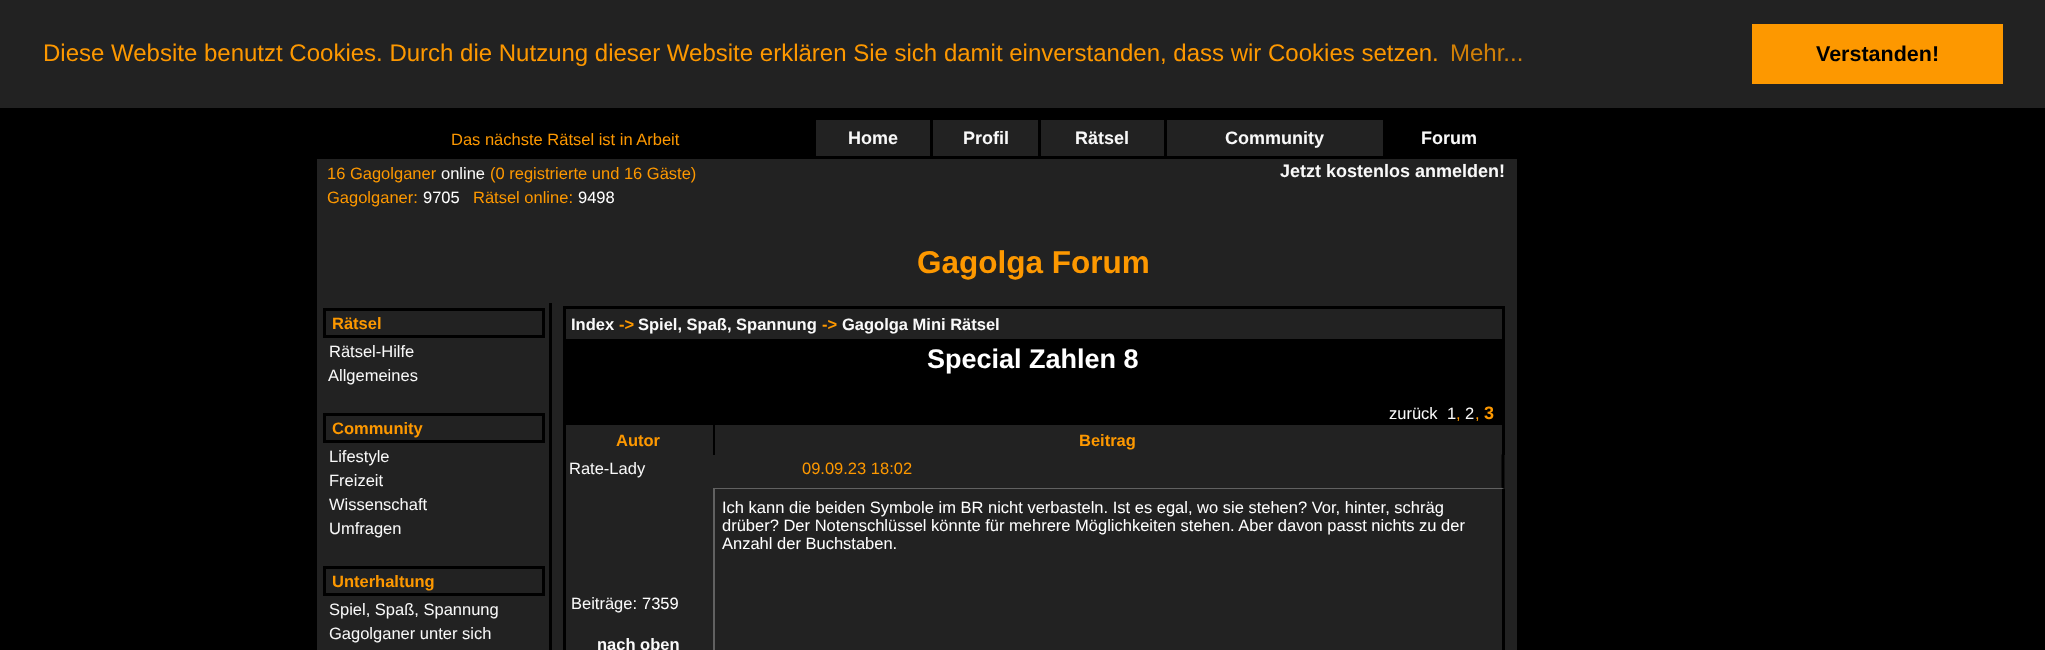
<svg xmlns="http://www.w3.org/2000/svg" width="2045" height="650">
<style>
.a{font:24px Liberation Sans;fill:#fd9800}
.b{font:24px Liberation Sans;fill:#d18007}
.c{font:bold 21.5px Liberation Sans;fill:#000}
.d{font:16.5px Liberation Sans;fill:#fd9800}
.e{font:bold 18px Liberation Sans;fill:#f9f9f9}
.f{font:16.5px Liberation Sans;fill:#f9f9f9}
.g{font:16.5px Liberation Sans;fill:#fff}
.h{font:bold 31.5px Liberation Sans;fill:#fd9800}
.i{font:bold 16.5px Liberation Sans;fill:#fd9800}
.j{font:bold 16.5px Liberation Sans;fill:#f9f9f9}
.k{font:bold 27px Liberation Sans;fill:#fff}
.l{font:bold 18px Liberation Sans;fill:#fd9800}
</style>
<rect width="100%" height="100%" fill="#000"/>
<path fill="#222" d="M0 0h2045v108H0z"/>
<path fill="#fd9800" d="M1752 24h251v60H1752z"/>
<path fill="#222" d="M816 120h567v36H816z"/>
<path fill="#000" d="M930 120h3v38H930z"/>
<path fill="#000" d="M1038 120h3v38H1038z"/>
<path fill="#000" d="M1164 120h3v38H1164z"/>
<path fill="#222" d="M317 159h1200v491H317z"/>
<path fill="#000" d="M549 303h3v347H549z"/>
<path fill="none" stroke="#000" stroke-width="3" d="M324.5 309.5h219v27H324.5z"/>
<path fill="none" stroke="#000" stroke-width="3" d="M324.5 414.5h219v27H324.5z"/>
<path fill="none" stroke="#000" stroke-width="3" d="M324.5 567.5h219v27H324.5z"/>
<path fill="#000" d="M563 306h942v3H563z"/>
<path fill="#000" d="M1502 306h3v33H1502z"/>
<path fill="#000" d="M563 306h3v33H563z"/>
<path fill="#000" d="M563 339h942v41H563z"/>
<path fill="#000" d="M563 380h942v45H563z"/>
<path fill="#000" d="M563 425h3v225H563z"/>
<path fill="#000" d="M1502 425h3v30H1502z"/>
<path fill="#000" d="M713 425h2v30H713z"/>
<path fill="#616161" d="M713 488h462v1H713z"/>
<path fill="#000" d="M1504.5 454.5v34.5l-3-1.5v-33z"/>
<path fill="#616161" d="M1504 489h-330v-1h328z"/>
<path fill="#000" d="M1502 489h3v161H1502z"/>
<path fill="#616161" d="M713 489h2v161H713z"/>
<text class="a" x="43" y="61">Diese Website benutzt Cookies. Durch die Nutzung dieser Website erklären Sie sich damit einverstanden, dass wir Cookies setzen.</text>
<text class="b" x="1450" y="61">Mehr...</text>
<text class="c" x="1816" y="61">Verstanden!</text>
<text class="d" x="451" y="145">Das nächste Rätsel ist in Arbeit</text>
<text class="e" x="848" y="144">Home</text>
<text class="e" x="963" y="144">Profil</text>
<text class="e" x="1075" y="144">Rätsel</text>
<text class="e" x="1225" y="144">Community</text>
<text class="e" x="1421" y="144">Forum</text>
<text class="d" x="327" y="179">16 Gagolganer</text>
<text class="f" x="441" y="179">online</text>
<text class="d" x="490" y="179">(0 registrierte und 16 Gäste)</text>
<text class="d" x="327" y="203">Gagolganer:</text>
<text class="g" x="423" y="203">9705</text>
<text class="d" x="473" y="203">Rätsel online:</text>
<text class="g" x="578" y="203">9498</text>
<text class="e" x="1280" y="177">Jetzt kostenlos anmelden!</text>
<text class="h" x="917" y="273">Gagolga Forum</text>
<text class="i" x="332" y="329">Rätsel</text>
<text class="f" x="329" y="357">Rätsel-Hilfe</text>
<text class="f" x="328" y="381">Allgemeines</text>
<text class="i" x="332" y="434">Community</text>
<text class="f" x="329" y="462">Lifestyle</text>
<text class="f" x="329" y="486">Freizeit</text>
<text class="f" x="329" y="510">Wissenschaft</text>
<text class="f" x="329" y="534">Umfragen</text>
<text class="i" x="332" y="587">Unterhaltung</text>
<text class="f" x="329" y="615">Spiel, Spaß, Spannung</text>
<text class="f" x="329" y="639">Gagolganer unter sich</text>
<text class="j" x="571" y="330">Index</text>
<text class="i" x="619" y="330">-&gt;</text>
<text class="j" x="638" y="330">Spiel, Spaß, Spannung</text>
<text class="i" x="822" y="330">-&gt;</text>
<text class="j" x="842" y="330">Gagolga Mini Rätsel</text>
<text class="k" x="927" y="368">Special Zahlen 8</text>
<text class="f" x="1389" y="419">zurück</text>
<text class="f" x="1447" y="419">1</text>
<text class="f" x="1465" y="419">2</text>
<text class="l" x="1484" y="419">3</text>
<text class="d" x="1456" y="419">,</text>
<text class="d" x="1475" y="419">,</text>
<text class="i" x="616" y="446">Autor</text>
<text class="i" x="1079" y="446">Beitrag</text>
<text class="f" x="569" y="474">Rate-Lady</text>
<text class="d" x="802" y="474">09.09.23 18:02</text>
<text class="g" x="722" y="513">Ich kann die beiden Symbole im BR nicht verbasteln. Ist es egal, wo sie stehen? Vor, hinter, schräg</text>
<text class="g" x="722" y="531">drüber? Der Notenschlüssel könnte für mehrere Möglichkeiten stehen. Aber davon passt nichts zu der</text>
<text class="g" x="722" y="549">Anzahl der Buchstaben.</text>
<text class="f" x="571" y="609">Beiträge:</text>
<text class="g" x="642" y="609">7359</text>
<text class="j" x="597" y="650">nach oben</text>
</svg>
